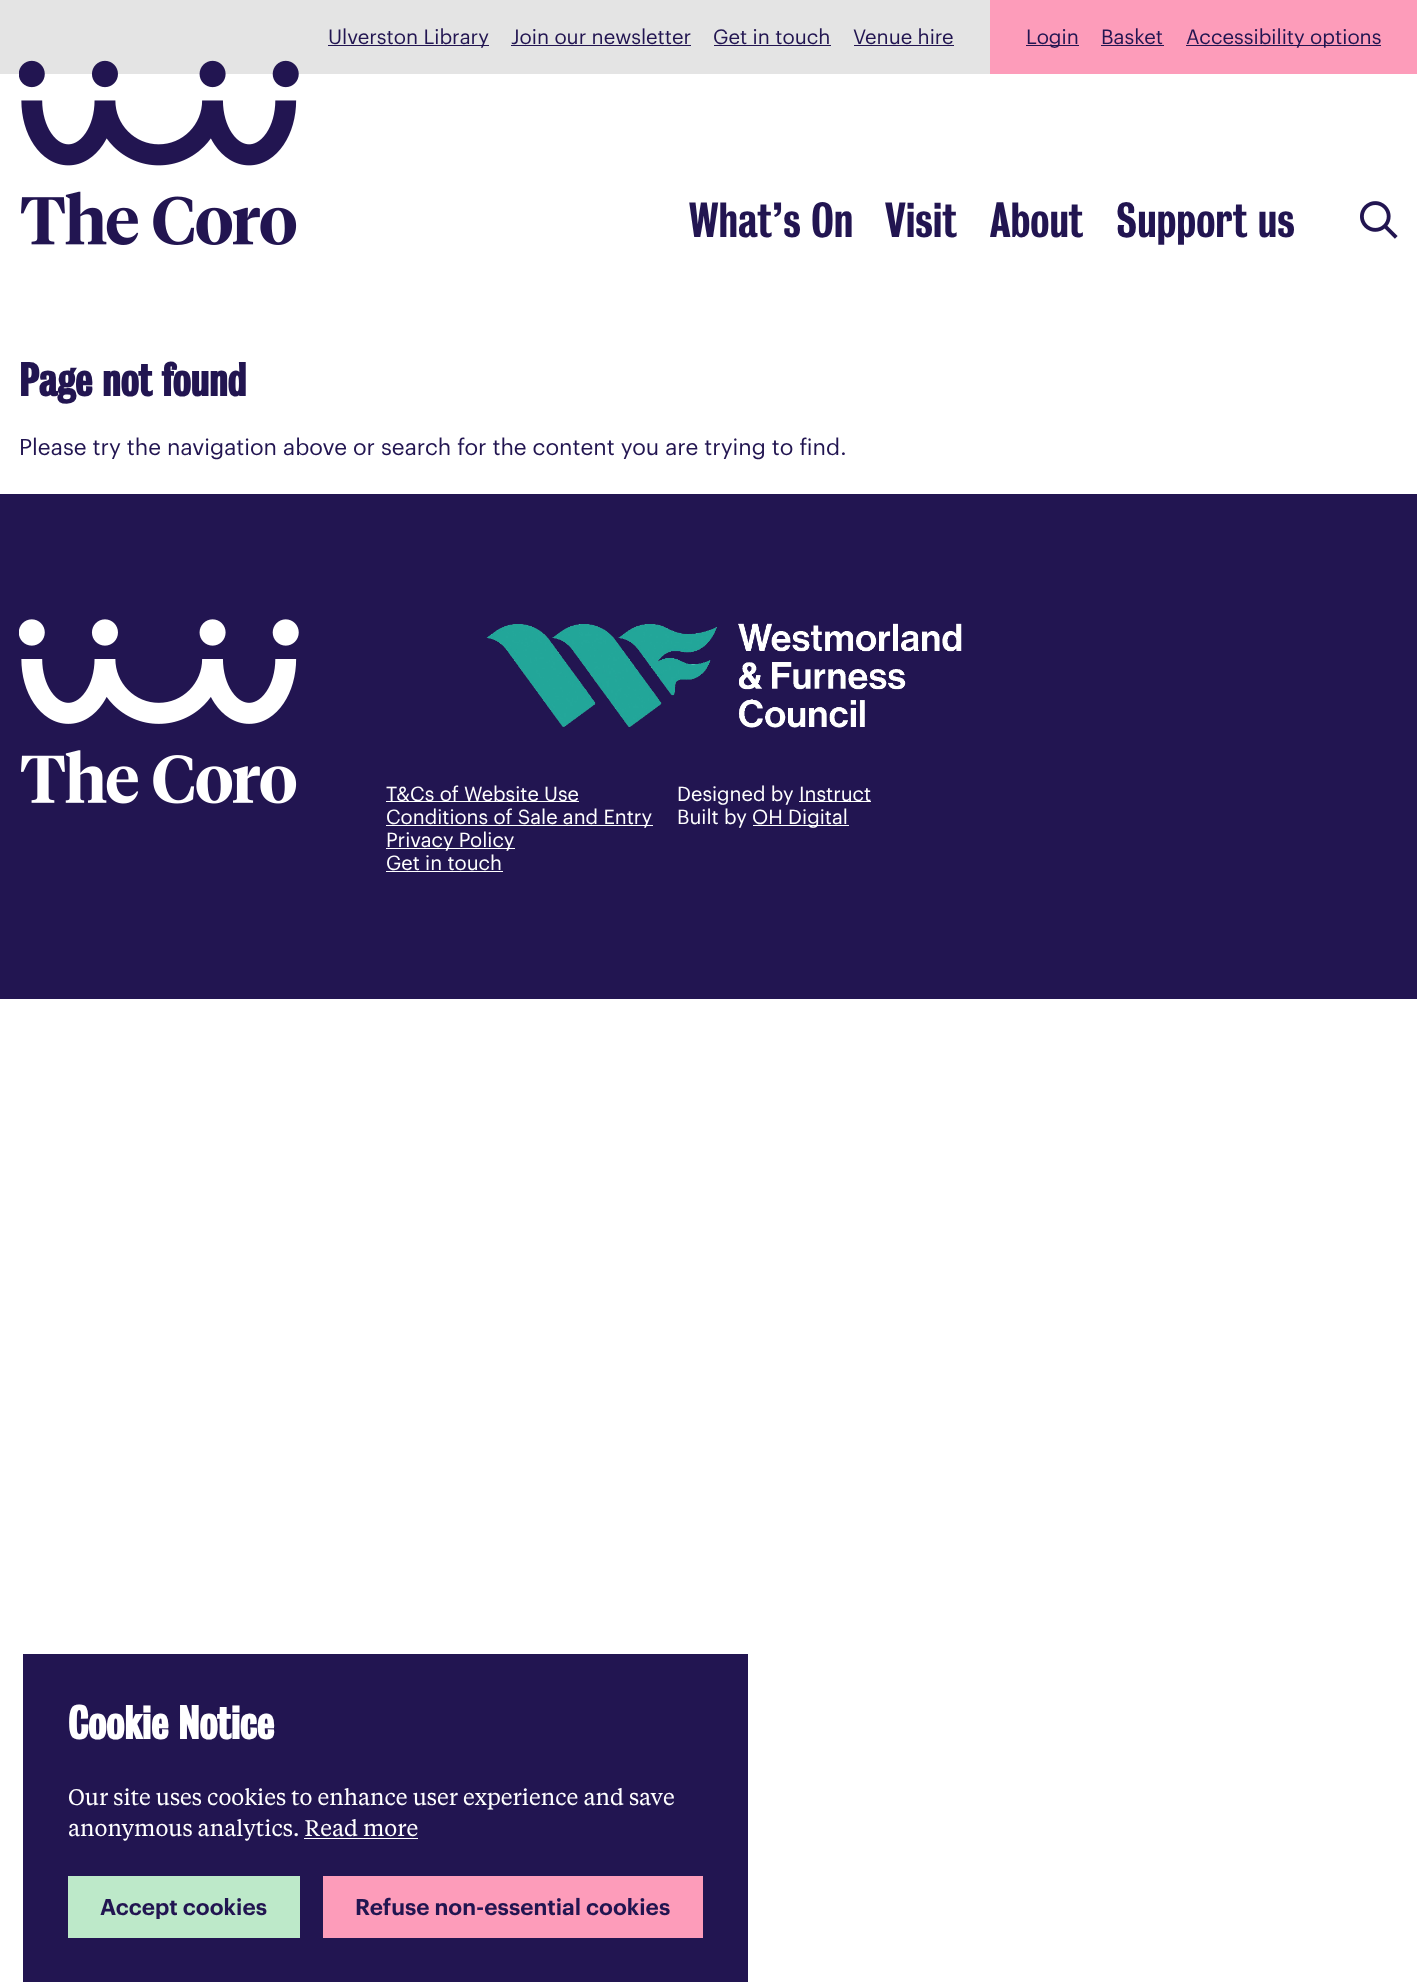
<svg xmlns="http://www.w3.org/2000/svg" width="1417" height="1982">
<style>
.a{font:20.25px Graphik;fill:#221551}
.b{font:500 45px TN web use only;fill:#221551}
.c{font:bold 42.5px TN web use only;fill:#221551}
.d{font:22.5px Graphik;fill:#221551}
.e{font:20px Graphik;fill:#fff}
.f{font:bold 42.5px TN web use only;fill:#fff}
.g{font:22.5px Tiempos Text;fill:#fff}
.h{font:600 22.5px Graphik;fill:#221551}
</style>
<rect width="100%" height="100%" fill="#fff"/>
<path fill="#e4e4e4" d="M0 0h990v74H0z"/>
<path fill="#221551" d="M328 45h161v1H328z"/>
<path fill="#221551" d="M511 45h180v1H511z"/>
<path fill="#221551" d="M714 45h117v1H714z"/>
<path fill="#221551" d="M854 45h100v1H854z"/>
<path fill="#fd9cba" d="M990 0h427v74H990z"/>
<path fill="#221551" d="M1026 45h53v1H1026z"/>
<path fill="#221551" d="M1101 45h63v1H1101z"/>
<path fill="#221551" d="M1186 45h195v1H1186z"/>
<image href="1.png" x="19" y="60" width="280" height="185"/>
<image href="2.png" x="1360" y="201" width="38" height="38"/>
<path fill="#221551" d="M0 494h1417v505H0z"/>
<image href="3.png" x="19" y="619" width="280" height="185"/>
<image href="4.png" x="486" y="623" width="476" height="105"/>
<path fill="#fff" d="M386 801h193v1H386z"/>
<path fill="#fff" d="M386 825h267v1H386z"/>
<path fill="#fff" d="M386 848h129v1H386z"/>
<path fill="#fff" d="M386 871h117v1H386z"/>
<path fill="#fff" d="M799 801h72v1H799z"/>
<path fill="#fff" d="M753 825h96v1H753z"/>
<path fill="#221551" d="M23 1654h725v328H23z"/>
<path fill="#fff" d="M304 1838h114v1H304z"/>
<path fill="#bde9c9" d="M68 1876h232v62H68z"/>
<path fill="#fd9cba" d="M323 1876h380v62H323z"/>
<text class="a" x="328" y="44">Ulverston Library</text>
<text class="a" x="511" y="44">Join our newsletter</text>
<text class="a" x="713" y="44">Get in touch</text>
<text class="a" x="853" y="44">Venue hire</text>
<text class="a" x="1026" y="44">Login</text>
<text class="a" x="1101" y="44">Basket</text>
<text class="a" x="1186" y="44">Accessibility options</text>
<text class="b" x="689" y="237">What’s On</text>
<text class="b" x="885" y="237">Visit</text>
<text class="b" x="990" y="237">About</text>
<text class="b" x="1116" y="237">Support us</text>
<text class="c" x="19" y="396">Page not found</text>
<text class="d" x="19" y="455">Please try the navigation above or search for the content you are trying to find.</text>
<text class="e" x="386" y="801">T&amp;Cs of Website Use</text>
<text class="e" x="386" y="824">Conditions of Sale and Entry</text>
<text class="e" x="386" y="847">Privacy Policy</text>
<text class="e" x="386" y="870">Get in touch</text>
<text class="e" x="677" y="801">Designed by</text>
<text class="e" x="799" y="801">Instruct</text>
<text class="e" x="677" y="824">Built by</text>
<text class="e" x="752" y="824">OH Digital</text>
<text class="f" x="68" y="1739">Cookie Notice</text>
<text class="g" x="68" y="1805">Our site uses cookies to enhance user experience and save</text>
<text class="g" x="68" y="1836">anonymous analytics. Read more</text>
<text class="h" x="100" y="1915">Accept cookies</text>
<text class="h" x="355" y="1915">Refuse non-essential cookies</text>
</svg>
